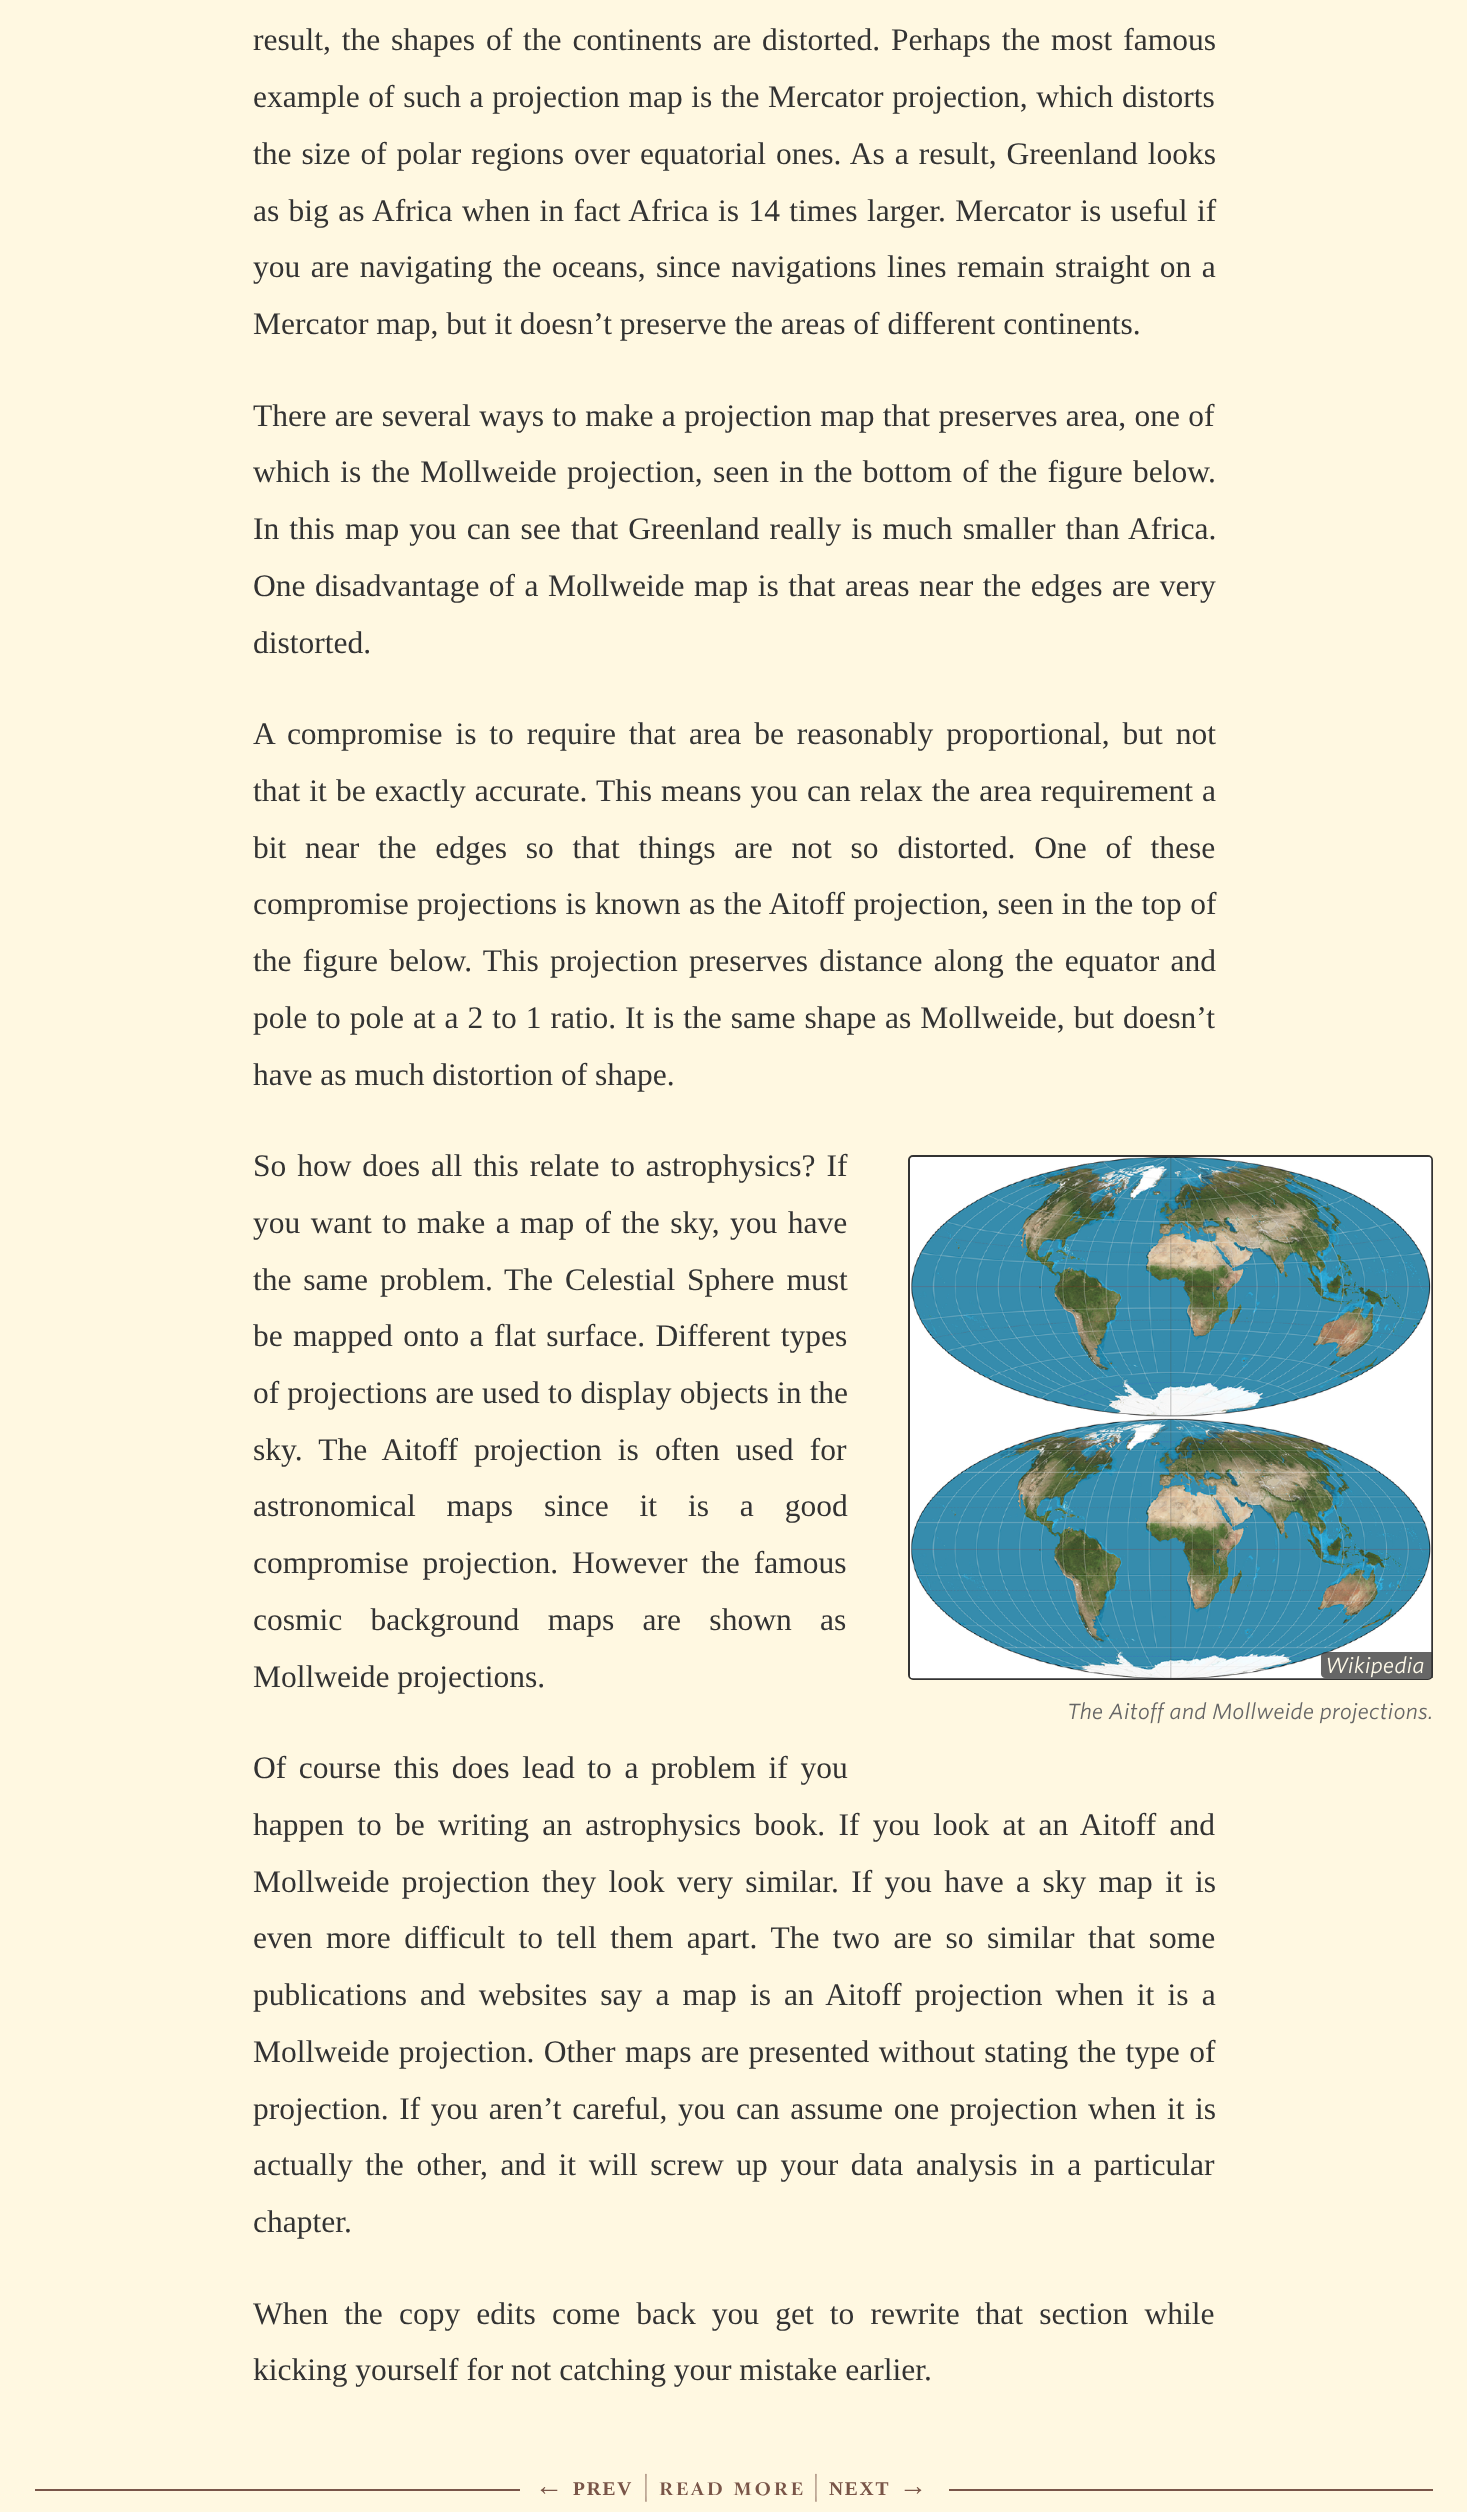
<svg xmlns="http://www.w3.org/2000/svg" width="1467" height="2512">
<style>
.a{font:31.5px Liberation Serif;fill:#333}
.b{font:italic 300 21px 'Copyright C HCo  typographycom';fill:#fffae9}
.c{font:italic 300 21px 'Copyright C HCo  typographycom';fill:#666}
.d{font:bold 28px Liberation Serif;letter-spacing:1.75px;fill:#795548}
.e{font:bold 19.5px Liberation Serif;letter-spacing:1.75px;fill:#795548}
.f{font:28px 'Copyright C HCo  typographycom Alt';letter-spacing:1.75px;fill:#795548}
</style>
<rect width="100%" height="100%" fill="#fff8e1"/>
<rect fill="none" stroke="#333" stroke-width="2" x="909" y="1156" width="523" height="523" rx="4"/>
<image href="1.png" x="910" y="1157" width="522" height="522"/>
<path fill="#333333bf" d="M1325 1652h108v26h-108c-2 0-4-2-4-4v-18c0-2 2-4 4-4z"/>
<path fill="#795548" d="M35 2489h485v2H35z"/>
<path fill="#795548" d="M949 2489h484v2H949z"/>
<text class="a" x="253" y="50" word-spacing="3">result, the shapes of the continents are distorted. Perhaps the most famous</text>
<text class="a" x="253" y="107" word-spacing="0.75">example of such a projection map is the Mercator projection, which distorts</text>
<text class="a" x="253" y="164" word-spacing="2.1">the size of polar regions over equatorial ones. As a result, Greenland looks</text>
<text class="a" x="253" y="221" word-spacing="1.5">as big as Africa when in fact Africa is 14 times larger. Mercator is useful if</text>
<text class="a" x="253" y="277" word-spacing="2.6">you are navigating the oceans, since navigations lines remain straight on a</text>
<text class="a" x="253" y="334">Mercator map, but it doesn’t preserve the areas of different continents.</text>
<text class="a" x="253" y="426" word-spacing="0.5">There are several ways to make a projection map that preserves area, one of</text>
<text class="a" x="253" y="482" word-spacing="2.4">which is the Mollweide projection, seen in the bottom of the figure below.</text>
<text class="a" x="253" y="539" word-spacing="2.25">In this map you can see that Greenland really is much smaller than Africa.</text>
<text class="a" x="253" y="596" word-spacing="1.6">One disadvantage of a Mollweide map is that areas near the edges are very</text>
<text class="a" x="253" y="653">distorted.</text>
<text class="a" x="253" y="744" word-spacing="5">A compromise is to require that area be reasonably proportional, but not</text>
<text class="a" x="253" y="801" word-spacing="1.2">that it be exactly accurate. This means you can relax the area requirement a</text>
<text class="a" x="253" y="858" word-spacing="10.9">bit near the edges so that things are not so distorted. One of these</text>
<text class="a" x="253" y="914" word-spacing="0.5">compromise projections is known as the Aitoff projection, seen in the top of</text>
<text class="a" x="253" y="971" word-spacing="3.4">the figure below. This projection preserves distance along the equator and</text>
<text class="a" x="253" y="1028" word-spacing="1.1">pole to pole at a 2 to 1 ratio. It is the same shape as Mollweide, but doesn’t</text>
<text class="a" x="253" y="1085">have as much distortion of shape.</text>
<text class="a" x="253" y="1176" word-spacing="3">So how does all this relate to astrophysics? If</text>
<text class="a" x="253" y="1233" word-spacing="2.5">you want to make a map of the sky, you have</text>
<text class="a" x="253" y="1290" word-spacing="4">the same problem. The Celestial Sphere must</text>
<text class="a" x="253" y="1346" word-spacing="2.5">be mapped onto a flat surface. Different types</text>
<text class="a" x="253" y="1403" word-spacing="0.25">of projections are used to display objects in the</text>
<text class="a" x="253" y="1460" word-spacing="8.25">sky. The Aitoff projection is often used for</text>
<text class="a" x="253" y="1516" word-spacing="23">astronomical maps since it is a good</text>
<text class="a" x="253" y="1573" word-spacing="6">compromise projection. However the famous</text>
<text class="a" x="253" y="1630" word-spacing="20.5">cosmic background maps are shown as</text>
<text class="a" x="253" y="1687">Mollweide projections.</text>
<text class="b" x="1325" y="1673">Wikipedia</text>
<text class="c" x="1067" y="1719">The Aitoff and Mollweide projections.</text>
<text class="a" x="253" y="1778" word-spacing="4.75">Of course this does lead to a problem if you</text>
<text class="a" x="253" y="1835" word-spacing="5.4">happen to be writing an astrophysics book. If you look at an Aitoff and</text>
<text class="a" x="253" y="1892" word-spacing="4.5">Mollweide projection they look very similar. If you have a sky map it is</text>
<text class="a" x="253" y="1948" word-spacing="5.6">even more difficult to tell them apart. The two are so similar that some</text>
<text class="a" x="253" y="2005" word-spacing="5.25">publications and websites say a map is an Aitoff projection when it is a</text>
<text class="a" x="253" y="2062" word-spacing="1.5">Mollweide projection. Other maps are presented without stating the type of</text>
<text class="a" x="253" y="2119" word-spacing="2.75">projection. If you aren’t careful, you can assume one projection when it is</text>
<text class="a" x="253" y="2175" word-spacing="4.75">actually the other, and it will screw up your data analysis in a particular</text>
<text class="a" x="253" y="2232">chapter.</text>
<text class="a" x="253" y="2324" word-spacing="8.25">When the copy edits come back you get to rewrite that section while</text>
<text class="a" x="253" y="2380">kicking yourself for not catching your mistake earlier.</text>
<text class="d" x="535" y="2495">←</text>
<text class="e" x="573" y="2495">PREV</text>
<text class="f" x="643" y="2495">| read more |</text>
<text class="e" x="829" y="2495">NEXT</text>
<text class="d" x="899" y="2495">→</text>
</svg>
